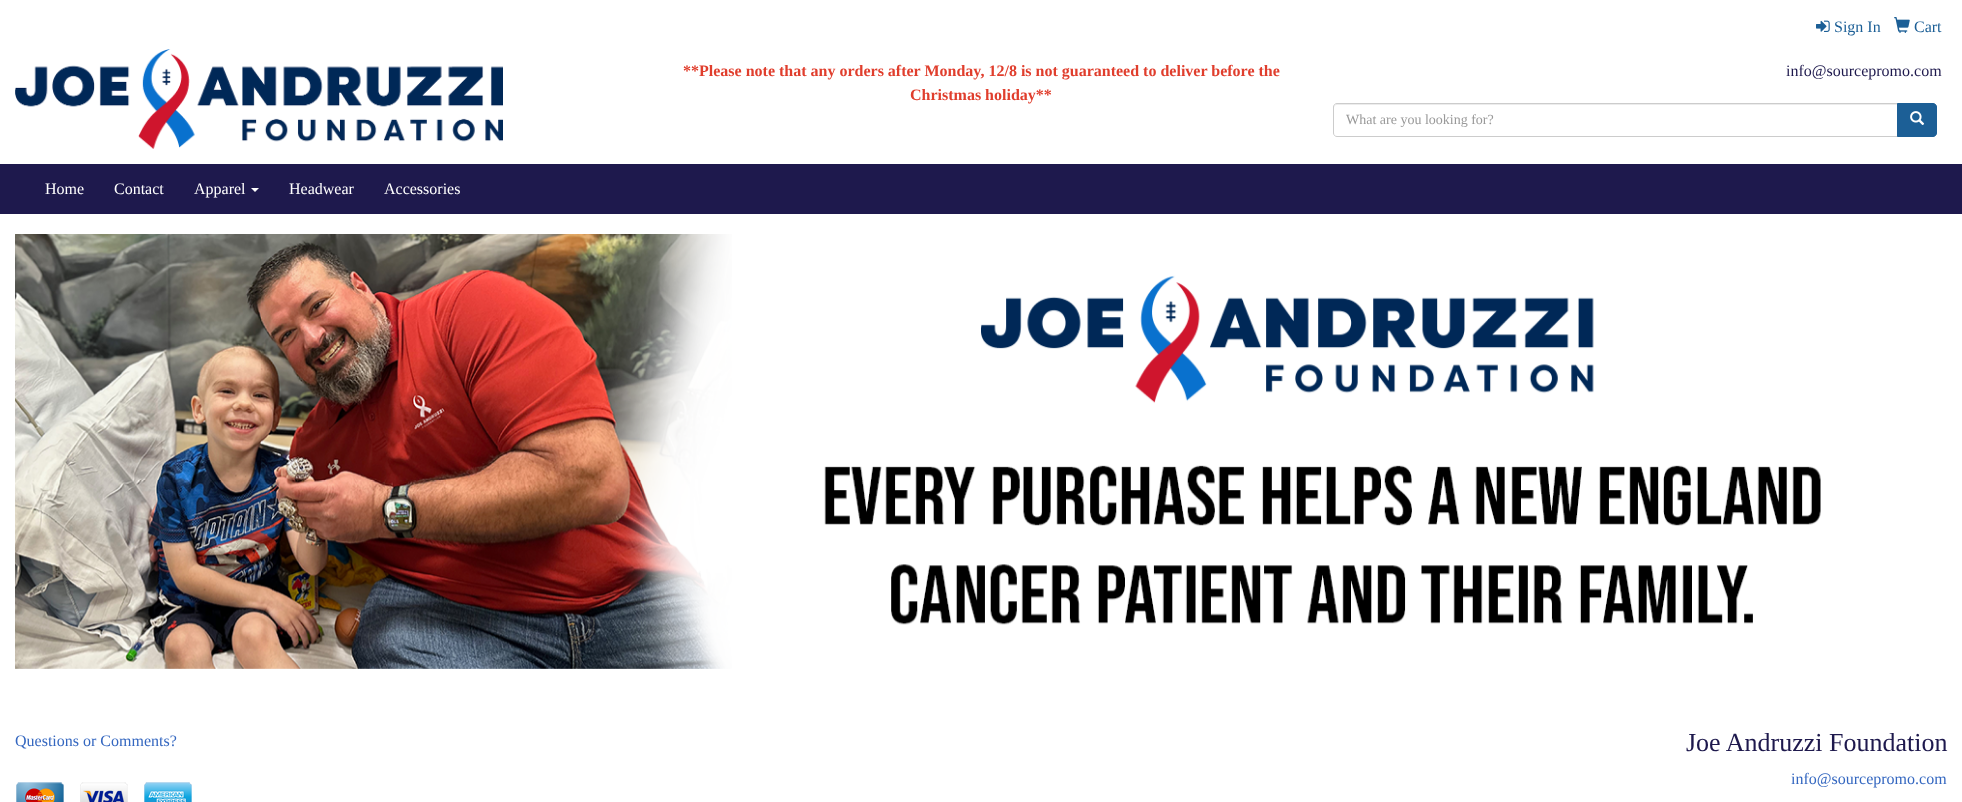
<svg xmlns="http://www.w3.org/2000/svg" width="1962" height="802">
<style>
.a{font:16px Liberation Serif;fill:#1c5f96}
.b{font:bold 16px Liberation Serif;fill:#e03e2d}
.c{font:16px Liberation Serif;fill:#1e194d}
.d{font:14px Liberation Serif;fill:#999}
.e{font:16px Liberation Serif;fill:#fff}
.f{font:16px Liberation Serif;fill:#3467c0}
.g{font:26px Liberation Serif;fill:#1e194d}
</style>
<rect width="100%" height="100%" fill="#fff"/>
<image href="1.png" x="1816" y="20" width="14" height="12"/>
<image href="2.png" x="1894" y="17" width="16" height="16"/>
<image href="3.png" x="15" y="49" width="488" height="100"/>
<path fill="#ececec" d="M1337 105h560v-1h-560c-2 0-3 1-3 3v1c0-2 1-3 3-3z"/>
<path fill="none" stroke="#ccc" d="M1337 103.5h560.5v33h-560.5c-2 0-3.5-1.5-3.5-3.5v-26c0-2 1.5-3.5 3.5-3.5z"/>
<path fill="#1c5f96" stroke="#1c5f96" d="M1897.5 103.5h35.5c2 0 3.5 1.5 3.5 3.5v26c0 2-1.5 3.5-3.5 3.5h-35.5z"/>
<image href="4.png" x="1910" y="111" width="15" height="14"/>
<path fill="#1e194d" d="M0 164h1962v50H0z"/>
<path fill="#fff" d="M251 188h8l-4 4z"/>
<image href="5.png" x="15" y="234" width="1806" height="435"/>
<image href="6.png" x="16" y="782" width="48" height="20"/>
<image href="7.png" x="80" y="782" width="48" height="20"/>
<image href="8.png" x="144" y="782" width="48" height="20"/>
<text class="a" x="1834" y="32">Sign In</text>
<text class="a" x="1914" y="32">Cart</text>
<text class="b" x="683" y="76">**Please note that any orders after Monday, 12/8 is not guaranteed to deliver before the</text>
<text class="b" x="910" y="100">Christmas holiday**</text>
<text class="c" x="1786" y="76">info@sourcepromo.com</text>
<text class="d" x="1346" y="124">What are you looking for?</text>
<text class="e" x="45" y="194">Home</text>
<text class="e" x="114" y="194">Contact</text>
<text class="e" x="194" y="194">Apparel</text>
<text class="e" x="289" y="194">Headwear</text>
<text class="e" x="384" y="194">Accessories</text>
<text class="f" x="15" y="746">Questions or Comments?</text>
<text class="g" x="1686" y="751">Joe Andruzzi Foundation</text>
<text class="f" x="1791" y="784">info@sourcepromo.com</text>
</svg>
